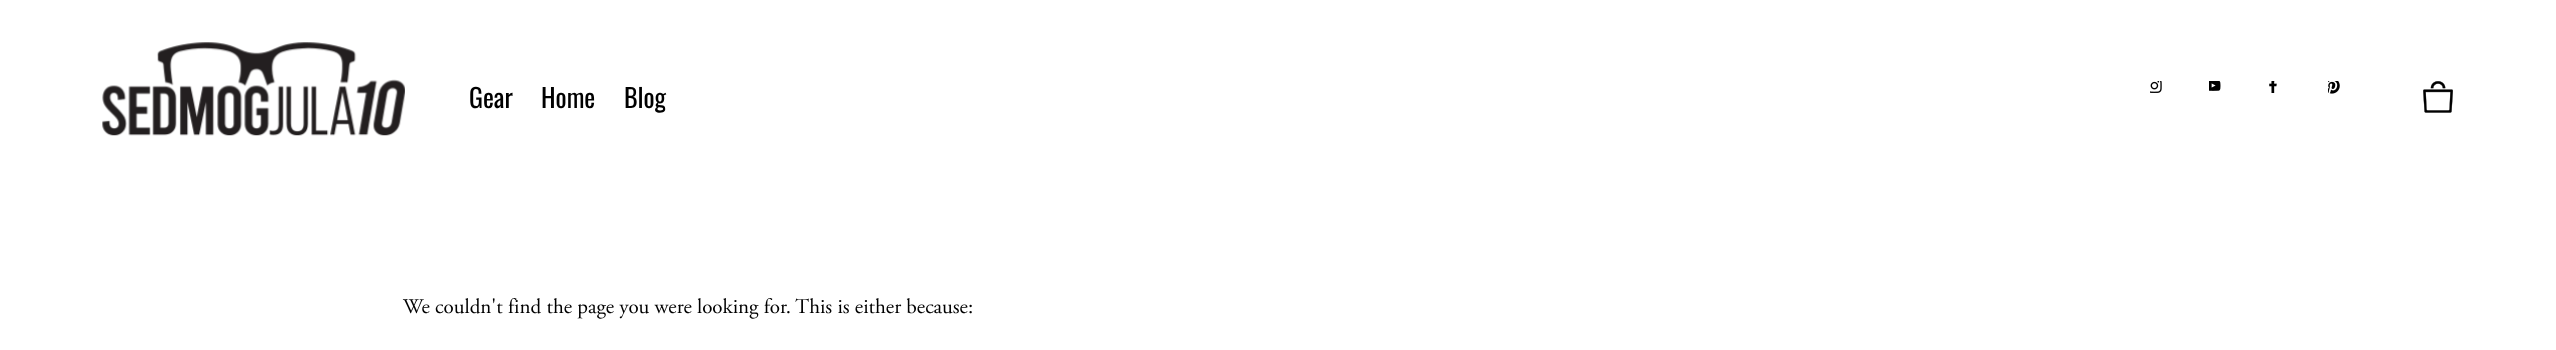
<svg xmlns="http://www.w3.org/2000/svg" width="2556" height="350">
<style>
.a{font:26px Oswald;fill:#000}
.b{font:21px Adobe Garamond;fill:#000}
</style>
<rect width="100%" height="100%" fill="#fff"/>
<image href="1.png" x="102" y="42" width="303" height="94"/>
<image href="2.png" x="2150" y="81" width="12" height="12"/>
<image href="3.png" x="2209" y="81" width="12" height="10"/>
<image href="4.png" x="2269" y="81" width="8" height="12"/>
<image href="5.png" x="2328" y="81" width="12" height="13"/>
<image href="6.png" x="2423" y="81" width="30" height="32"/>
<text class="a" x="469" y="108">Gear</text>
<text class="a" x="541" y="108">Home</text>
<text class="a" x="624" y="108">Blog</text>
<text class="b" x="403" y="313">We couldn't find the page you were looking for. This is either because:</text>
</svg>
